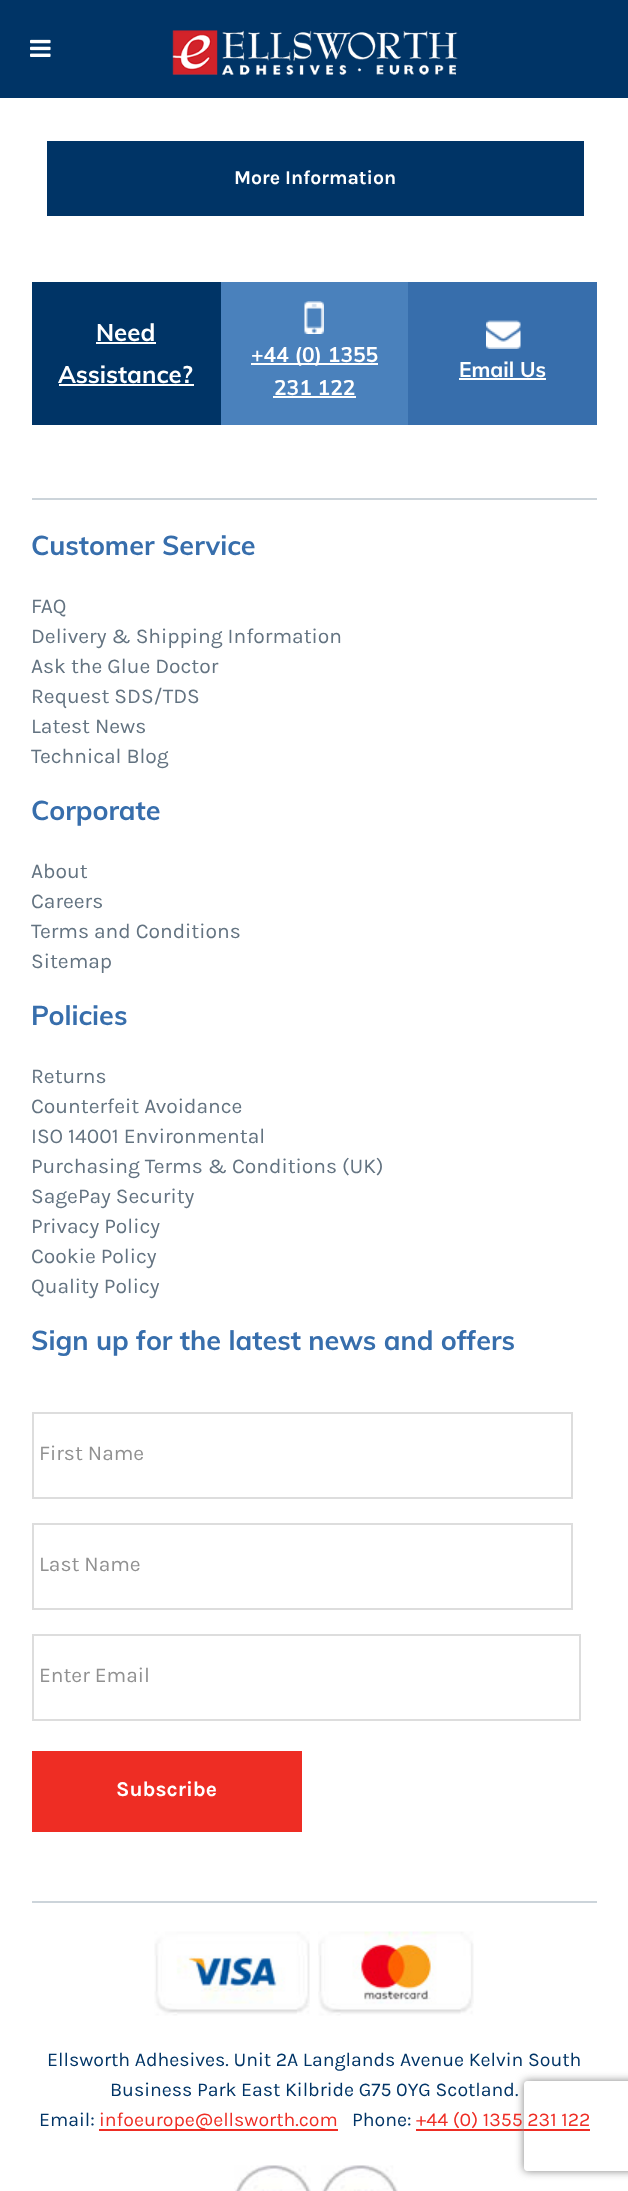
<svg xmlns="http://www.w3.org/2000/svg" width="628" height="2191">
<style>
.a{font:bold 19.5px Karla;fill:#fff}
.b{font:bold 24px Muli;fill:#fff}
.c{font:bold 21px Muli;fill:#fff}
.d{font:bold 27px Muli;fill:#376eac}
.e{font:21px Karla;fill:#637381}
.f{font:21px Karla;fill:#919191}
.g{font:bold 21px Karla;fill:#fff}
.h{font:19.5px Karla;fill:#003466}
.i{font:19.5px Karla;fill:#ee2d24}
</style>
<defs>
<clipPath id="clip1"><path d="M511 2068h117v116h-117zm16 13h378c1.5 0 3 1.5 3 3v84c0 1.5-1.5 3-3 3h-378c-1.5 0-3-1.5-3-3v-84c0-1.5 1.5-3 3-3z" clip-rule="evenodd"/></clipPath>
</defs>
<rect width="100%" height="100%" fill="#fff"/>
<path fill="#003466" d="M0 0h628v98H0z"/>
<image href="1.png" x="30" y="39" width="21" height="18"/>
<image href="2.png" x="172" y="30" width="286" height="45"/>
<path fill="#003466" d="M47 141h537v75H47z"/>
<path fill="#003466" d="M32 282h189v143H32z"/>
<path fill="#fff" d="M96 342h60v2H96z"/>
<path fill="#fff" d="M59 384h135v2H59z"/>
<path fill="#4a81bc" d="M221 282h187v143H221z"/>
<image href="3.png" x="304" y="301" width="20" height="33"/>
<path fill="#fff" d="M251 363h127v2H251z"/>
<path fill="#fff" d="M273 396h83v2H273z"/>
<path fill="#376eac" d="M408 282h189v143H408z"/>
<image href="4.png" x="486" y="320" width="35" height="29"/>
<path fill="#fff" d="M459 378h87v2H459z"/>
<path fill="#ccd4da" d="M32 498h565v2H32z"/>
<path fill="none" stroke="#ddd" stroke-width="2" d="M33 1413h539v85H33z"/>
<path fill="none" stroke="#ddd" stroke-width="2" d="M33 1524h539v85H33z"/>
<path fill="none" stroke="#ddd" stroke-width="2" d="M33 1635h547v85H33z"/>
<path fill="#ee2d24" d="M32 1751h270v81H32z"/>
<path fill="#ccd4da" d="M32 1901h565v2H32z"/>
<image href="5.png" x="154" y="1931" width="156" height="85"/>
<image href="6.png" x="318" y="1931" width="156" height="85"/>
<path fill="#ee2d24" d="M99 2129h239v2H99z"/>
<path fill="#ee2d24" d="M416 2129h174v2H416z"/>
<image href="7.png" x="234" y="2165" width="77" height="26"/>
<image href="8.png" x="321" y="2165" width="77" height="26"/>
<g clip-path="url(#clip1)">
<rect fill="#808080" filter="blur(4px)" x="524" y="2081" width="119" height="90" rx="3"/>
</g>
<text class="a" x="234" y="184">More Information</text>
<text class="b" x="96" y="341">Need</text>
<text class="b" x="58" y="383">Assistance?</text>
<text class="c" x="251" y="362">+44 (0) 1355</text>
<text class="c" x="274" y="395">231 122</text>
<text class="c" x="459" y="377">Email Us</text>
<text class="d" x="31" y="555">Customer Service</text>
<text class="e" x="31" y="613">FAQ</text>
<text class="e" x="31" y="643">Delivery &amp; Shipping Information</text>
<text class="e" x="31" y="673">Ask the Glue Doctor</text>
<text class="e" x="31" y="703">Request SDS/TDS</text>
<text class="e" x="31" y="733">Latest News</text>
<text class="e" x="31" y="763">Technical Blog</text>
<text class="d" x="31" y="820">Corporate</text>
<text class="e" x="31" y="878">About</text>
<text class="e" x="31" y="908">Careers</text>
<text class="e" x="31" y="938">Terms and Conditions</text>
<text class="e" x="31" y="968">Sitemap</text>
<text class="d" x="31" y="1025">Policies</text>
<text class="e" x="31" y="1083">Returns</text>
<text class="e" x="31" y="1113">Counterfeit Avoidance</text>
<text class="e" x="31" y="1143">ISO 14001 Environmental</text>
<text class="e" x="31" y="1173">Purchasing Terms &amp; Conditions (UK)</text>
<text class="e" x="31" y="1203">SagePay Security</text>
<text class="e" x="31" y="1233">Privacy Policy</text>
<text class="e" x="31" y="1263">Cookie Policy</text>
<text class="e" x="31" y="1293">Quality Policy</text>
<text class="d" x="31" y="1350">Sign up for the latest news and offers</text>
<text class="f" x="39" y="1460">First Name</text>
<text class="f" x="39" y="1571">Last Name</text>
<text class="f" x="39" y="1682">Enter Email</text>
<text class="g" x="116" y="1796">Subscribe</text>
<text class="h" x="47" y="2066">Ellsworth Adhesives. Unit 2A Langlands Avenue Kelvin South</text>
<text class="h" x="110" y="2096">Business Park East Kilbride G75 0YG Scotland.</text>
<text class="h" x="39" y="2126">Email:</text>
<text class="i" x="99" y="2126">infoeurope@ellsworth.com</text>
<text class="h" x="352" y="2126">Phone:</text>
<text class="i" x="416" y="2126">+44 (0) 1355 231 122</text>
</svg>
